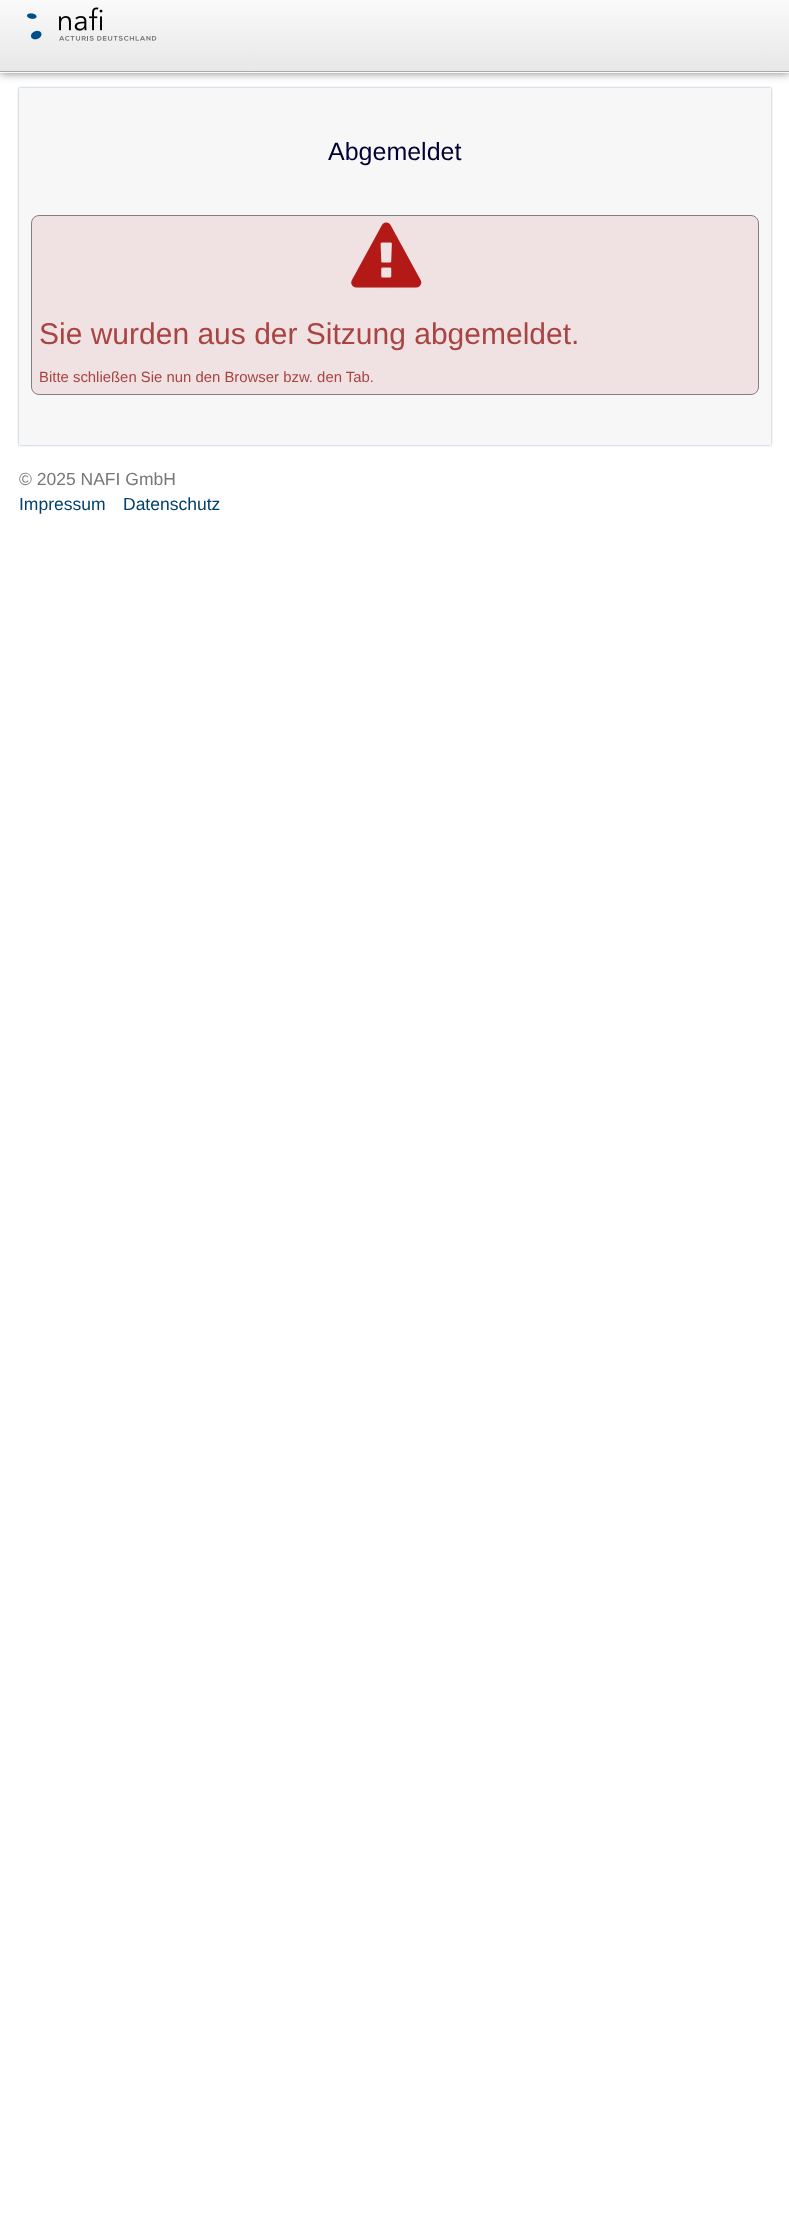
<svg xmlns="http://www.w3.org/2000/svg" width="789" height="2236">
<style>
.a{font:25px Liberation Sans;fill:#003}
.b{font:30px Liberation Sans;fill:#a94442}
.c{font:14.9px Liberation Sans;fill:#a94442}
.d{font:17.5px Liberation Sans;fill:#777}
.e{font:17.5px Liberation Sans;fill:#00406e}
</style>
<defs>
<linearGradient id="g1" gradientUnits="userSpaceOnUse" x1="395" y1="0" x2="395" y2="71"><stop offset="0" stop-color="#fafafa"/><stop offset="1" stop-color="#e7e7e7"/></linearGradient>
<linearGradient id="g2" gradientUnits="userSpaceOnUse" x1="395" y1="71" x2="395" y2="143"><stop offset="0" stop-color="#fafafa"/><stop offset="1" stop-color="#e7e7e7"/></linearGradient>
</defs>
<rect width="100%" height="100%" fill="#fff"/>
<path fill="#164f8480" filter="blur(1px)" d="M19 88h752v357H19z"/>
<path fill="#f7f7f7" d="M19 88h752v357H19z"/>
<path fill="#00000080" filter="blur(5px)" d="M0 0h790v73H0z"/>
<path fill="url(#g1)" d="M0 0h789v71H0z"/>
<path fill="url(#g2)" d="M0 72h789v1H0z"/>
<path fill="#a9a9a9" d="M0 71h789v1H0z"/>
<image href="1.png" x="27" y="7" width="130" height="34"/>
<rect fill="#f0e2e3" stroke="#808080" x="31.5" y="215.5" width="727" height="179" rx="7.5"/>
<image href="2.png" x="351" y="222" width="71" height="66"/>
<text class="a" x="328" y="160">Abgemeldet</text>
<text class="b" x="39" y="344">Sie wurden aus der Sitzung abgemeldet.</text>
<text class="c" x="39" y="382">Bitte schließen Sie nun den Browser bzw. den Tab.</text>
<text class="d" x="19" y="485">© 2025 NAFI GmbH</text>
<text class="e" x="19" y="510">Impressum</text>
<text class="e" x="123" y="510">Datenschutz</text>
</svg>
